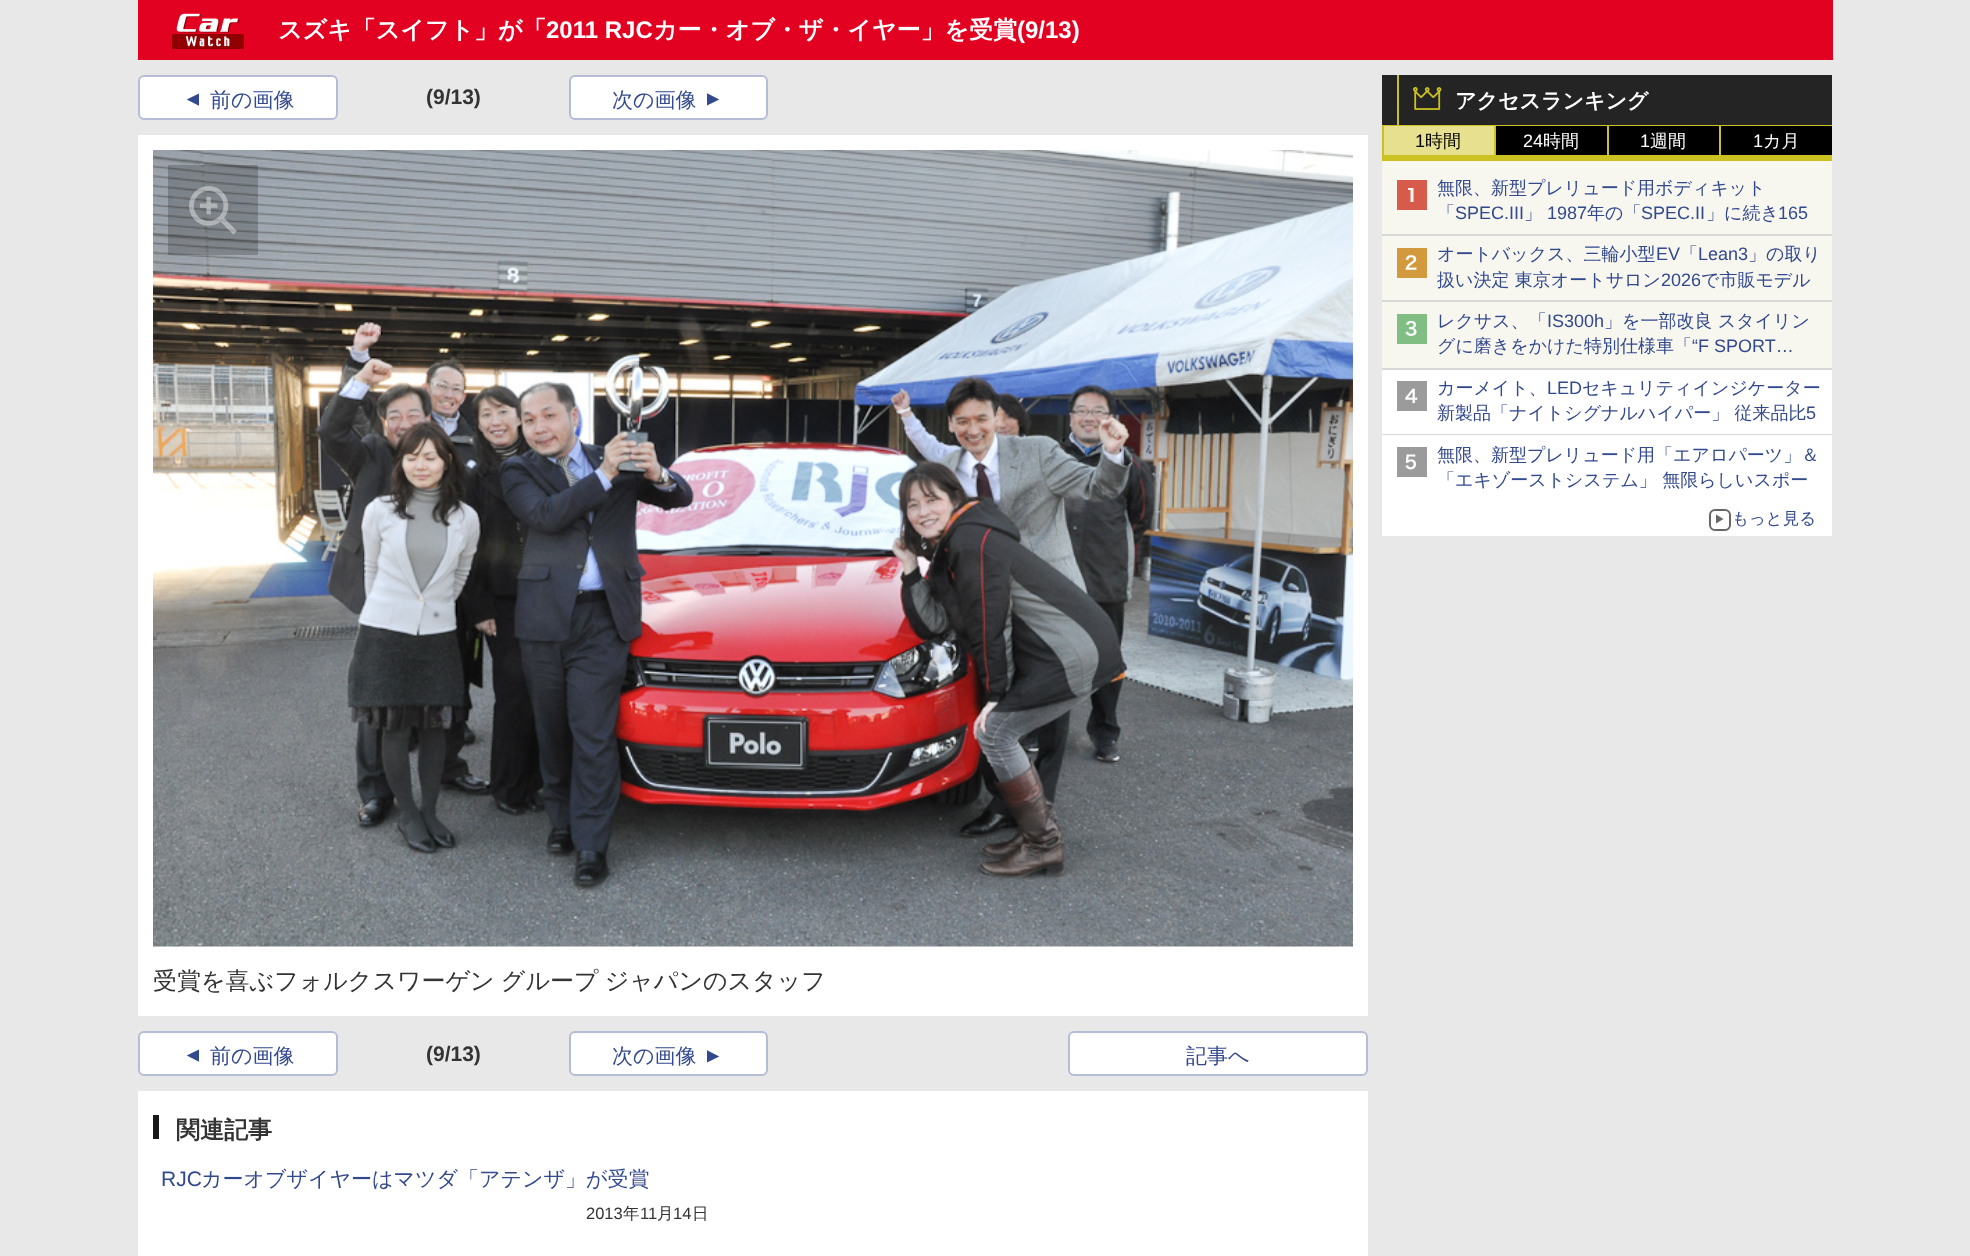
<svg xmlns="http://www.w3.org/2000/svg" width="1970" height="1256">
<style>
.a{font:bold 24px WenQuanYi Zen Hei;fill:#fff}
.b{font:bold 24px Liberation Sans;fill:#fff}
.c{font:21px Liberation Sans;fill:#33498e}
.d{font:500 21px WenQuanYi Zen Hei;fill:#33498e}
.e{font:bold 21px Liberation Sans;fill:#333}
.f{font:500 24px WenQuanYi Zen Hei;fill:#333}
.g{font:bold 24px WenQuanYi Zen Hei;fill:#333}
.h{font:16.5px Liberation Sans;fill:#333}
.i{font:500 16.5px WenQuanYi Zen Hei;fill:#333}
.j{font:bold 21px WenQuanYi Zen Hei;fill:#fff}
.k{font:18px Liberation Sans;fill:#000}
.l{font:500 18px WenQuanYi Zen Hei;fill:#000}
.m{font:18px Liberation Sans;fill:#fff}
.n{font:500 18px WenQuanYi Zen Hei;fill:#fff}
.o{font:500 18px WenQuanYi Zen Hei;fill:#33498e}
.p{font:18px Liberation Sans;fill:#33498e}
.q{font:500 16.5px WenQuanYi Zen Hei;fill:#33498e}
</style>
<rect width="100%" height="100%" fill="#e8e8e8"/>
<path fill="#e30121" d="M138 0h1695v60H138z"/>
<image href="1.png" x="172" y="13" width="72" height="36"/>
<rect fill="#fff" x="138" y="75" width="200" height="45" rx="6"/>
<rect fill="none" stroke="#32498e5c" stroke-width="2" x="139" y="76" width="198" height="43" rx="5"/>
<rect fill="#fff" x="569" y="75" width="199" height="45" rx="6"/>
<rect fill="none" stroke="#32498e5c" stroke-width="2" x="570" y="76" width="197" height="43" rx="5"/>
<path fill="#fff" d="M138 135h1230v881H138z"/>
<image href="2.png" x="153" y="150" width="1200" height="797"/>
<path fill="#00000033" d="M168 165h90v90H168z"/>
<image href="3.png" x="189" y="186" width="48" height="49"/>
<rect fill="#fff" x="138" y="1031" width="200" height="45" rx="6"/>
<rect fill="none" stroke="#32498e5c" stroke-width="2" x="139" y="1032" width="198" height="43" rx="5"/>
<rect fill="#fff" x="569" y="1031" width="199" height="45" rx="6"/>
<rect fill="none" stroke="#32498e5c" stroke-width="2" x="570" y="1032" width="197" height="43" rx="5"/>
<rect fill="#fff" x="1068" y="1031" width="300" height="45" rx="6"/>
<rect fill="none" stroke="#32498e5c" stroke-width="2" x="1069" y="1032" width="298" height="43" rx="5"/>
<path fill="#fff" d="M138 1091h1230v165H138z"/>
<path fill="#181818" d="M153 1115h6v24H153z"/>
<path fill="#242424" d="M1382 75h450v50H1382z"/>
<path fill="#cbc121" d="M1382 125h450v1H1382z"/>
<path fill="#cbc121" d="M1397 75h2v51H1397z"/>
<image href="4.png" x="1413" y="87" width="29" height="23"/>
<path fill="#e7e18f" d="M1384 126h110v29H1384z"/>
<path fill="#cbc121" d="M1382 155h450v6H1382z"/>
<path fill="#cbc121" d="M1382 126h2v35H1382z"/>
<path fill="#000" d="M1496 126h111v29H1496z"/>
<path fill="#cbc121" d="M1494 126h2v35H1494z"/>
<path fill="#000" d="M1609 126h110v29H1609z"/>
<path fill="#cbc121" d="M1607 126h2v35H1607z"/>
<path fill="#000" d="M1721 126h111v29H1721z"/>
<path fill="#cbc121" d="M1719 126h2v35H1719z"/>
<path fill="#f7f7ef" d="M1382 161h450v73H1382z"/>
<path fill="#fff" d="M1382 370h450v64H1382z"/>
<path fill="#d8d8d8" d="M1382 234h450v2H1382z"/>
<path fill="#d65b4a" d="M1397 180h30v30H1397z"/>
<path fill="#f7f7ef" d="M1413.5 202v-14h-5.5v2h2.5v12z"/>
<path fill="#f7f7ef" d="M1382 236h450v64H1382z"/>
<path fill="#d8d8d8" d="M1382 300h450v2H1382z"/>
<image href="5.png" x="1397" y="248" width="30" height="30"/>
<path fill="#f7f7ef" d="M1382 302h450v66H1382z"/>
<path fill="#d8d8d8" d="M1382 368h450v2H1382z"/>
<image href="6.png" x="1397" y="314" width="30" height="30"/>
<path fill="#d8d8d8" d="M1382 434h450v1H1382z"/>
<image href="7.png" x="1397" y="381" width="30" height="30"/>
<path fill="#fff" d="M1382 435h450v101H1382z"/>
<image href="8.png" x="1397" y="447" width="30" height="30"/>
<rect fill="none" stroke="#666" stroke-width="2" x="1710" y="510" width="20" height="20" rx="5"/>
<path fill="#666" d="M1716 523.5v-9l7.5 4.5z"/>
<text class="a" x="278" y="38">スズキ「スイフト」が「</text>
<text class="b" x="546" y="38">2011 RJC</text>
<text class="a" x="653" y="38">カー・オブ・ザ・イヤー」を受賞</text>
<text class="b" x="1017" y="38">(9/13)</text>
<text class="c" x="199" y="110" transform="rotate(-90 199 110)">▲</text>
<text class="d" x="210" y="107">前の画像</text>
<text class="e" x="426" y="104">(9/13)</text>
<text class="d" x="612" y="107">次の画像</text>
<text class="c" x="707" y="89" transform="rotate(90 707 89)">▲</text>
<text class="f" x="153" y="989" word-spacing="-1">受賞を喜ぶフォルクスワーゲン グループ ジャパンのスタッフ</text>
<text class="c" x="199" y="1066" transform="rotate(-90 199 1066)">▲</text>
<text class="d" x="210" y="1063">前の画像</text>
<text class="e" x="426" y="1061">(9/13)</text>
<text class="d" x="612" y="1063">次の画像</text>
<text class="c" x="707" y="1046" transform="rotate(90 707 1046)">▲</text>
<text class="d" x="1186" y="1063">記事へ</text>
<text class="g" x="176" y="1138">関連記事</text>
<text class="c" x="161" y="1186">RJC</text>
<text class="d" x="201" y="1186">カーオブザイヤーはマツダ「アテンザ」が受賞</text>
<text class="h" x="586" y="1219">2013</text>
<text class="i" x="623" y="1219">年</text>
<text class="h" x="640" y="1219">11</text>
<text class="i" x="657" y="1219">月</text>
<text class="h" x="673" y="1219">14</text>
<text class="i" x="692" y="1219">日</text>
<text class="j" x="1455" y="108">アクセスランキング</text>
<text class="k" x="1415" y="147">1</text>
<text class="l" x="1425" y="147">時間</text>
<text class="m" x="1523" y="147">24</text>
<text class="n" x="1543" y="147">時間</text>
<text class="m" x="1640" y="147">1</text>
<text class="n" x="1650" y="147">週間</text>
<text class="m" x="1753" y="147">1</text>
<text class="n" x="1763" y="147">カ月</text>
<text class="o" x="1437" y="194">無限、新型プレリュード用ボディキット</text>
<text class="o" x="1437" y="219">「</text>
<text class="p" x="1455" y="219">SPEC.III</text>
<text class="o" x="1524" y="219">」</text>
<text class="p" x="1547" y="219">1987</text>
<text class="o" x="1587" y="219">年の「</text>
<text class="p" x="1641" y="219">SPEC.II</text>
<text class="o" x="1706" y="219">」に続き</text>
<text class="p" x="1778" y="219">165</text>
<text class="o" x="1437" y="260">オートバックス、三輪小型</text>
<text class="p" x="1656" y="260">EV</text>
<text class="o" x="1680" y="260">「</text>
<text class="p" x="1698" y="260">Lean3</text>
<text class="o" x="1748" y="260">」の取り</text>
<text class="o" x="1437" y="286">扱い決定 東京オートサロン</text>
<text class="p" x="1661" y="286">2026</text>
<text class="o" x="1701" y="286">で市販モデル</text>
<text class="o" x="1437" y="327">レクサス、「</text>
<text class="p" x="1547" y="327">IS300h</text>
<text class="o" x="1604" y="327">」を一部改良 スタイリン</text>
<text class="o" x="1437" y="352">グに磨きをかけた特別仕様車「</text>
<text class="p" x="1692" y="352">“F SPORT…</text>
<text class="o" x="1437" y="394">カーメイト、</text>
<text class="p" x="1547" y="394">LED</text>
<text class="o" x="1582" y="394">セキュリティインジケーター</text>
<text class="o" x="1437" y="419">新製品「ナイトシグナルハイパー」 従来品比</text>
<text class="p" x="1806" y="419">5</text>
<text class="o" x="1437" y="461">無限、新型プレリュード用「エアロパーツ」＆</text>
<text class="o" x="1437" y="486">「エキゾーストシステム」 無限らしいスポー</text>
<text class="q" x="1732" y="524">もっと見る</text>
</svg>
